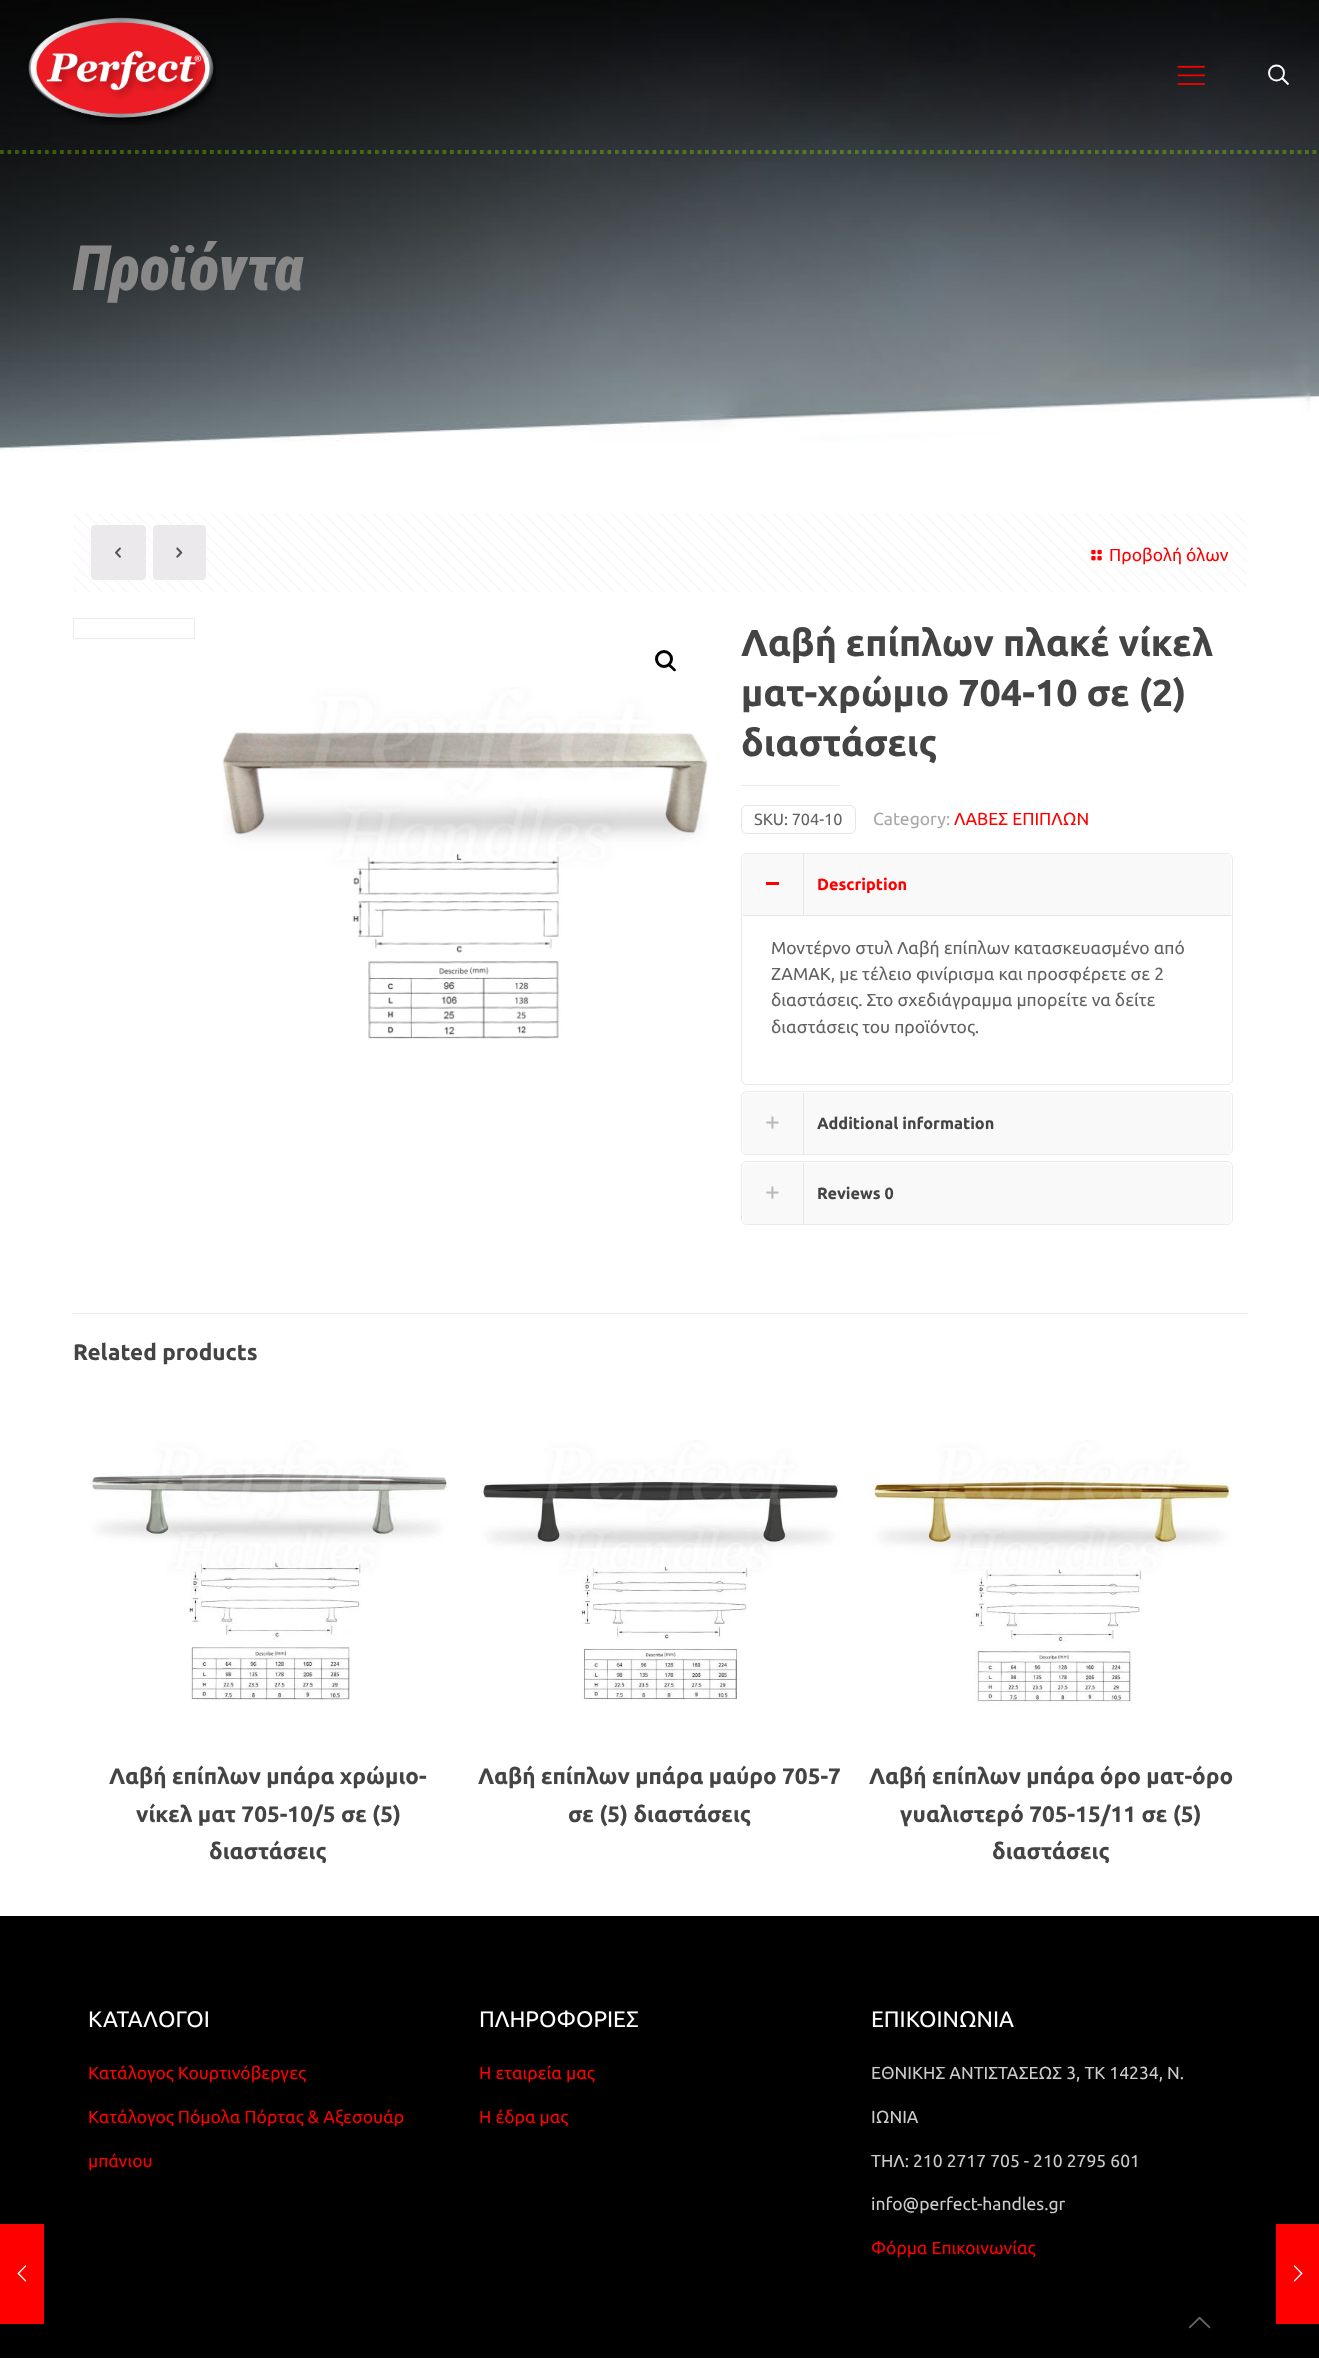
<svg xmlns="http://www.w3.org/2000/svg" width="1319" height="2373">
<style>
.a{font:italic 900 62.5px Roboto Condensed;fill:#888}
.b{font:17.5px Ubuntu;fill:#f00}
.c{font:bold 37.5px Ubuntu;fill:#444}
.d{font:16.25px Ubuntu;fill:#626262}
.e{font:17.5px Ubuntu;fill:#a8a8a8}
.f{font:bold 16.25px Ubuntu;fill:#f00}
.g{font:17.5px Ubuntu;fill:#626262}
.h{font:bold 16.25px Ubuntu;fill:#444}
.i{font:bold 22.5px Ubuntu;fill:#444}
.j{font:22.5px Ubuntu;fill:#fff}
.k{font:17.5px Ubuntu;fill:#ccc}
</style>
<rect width="100%" height="100%" fill="#fff"/>
<image href="1.png" x="0" y="0" width="1319" height="475"/>
<path fill="none" stroke="#a2ff004d" stroke-width="3.8" stroke-dasharray="3.75 3.75" d="M0 152h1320"/>
<image href="2.png" x="28" y="17" width="188" height="108"/>
<image href="3.png" x="1177" y="65" width="28" height="20"/>
<circle fill="none" stroke="#fff" stroke-width="1.9" cx="1276.5" cy="73" r="7.5"/>
<path fill="none" stroke="#fff" stroke-width="1.9" d="M1282 78l6.5 6.5"/>
<image href="4.png" x="73" y="513" width="1174" height="79"/>
<rect fill="#ebe9eb" x="91" y="525" width="55" height="55" rx="4"/>
<image href="5.png" x="115" y="547" width="6" height="11"/>
<rect fill="#ebe9eb" x="153" y="525" width="53" height="55" rx="4"/>
<image href="6.png" x="176" y="547" width="7" height="11"/>
<image href="7.png" x="1091" y="549" width="11" height="12"/>
<path fill="none" stroke="#ebebeb" d="M73.5 618.5h121v20H73.5z"/>
<circle fill="none" stroke="#000" stroke-width="3" cx="664" cy="659" r="7.5"/>
<path fill="#000" d="M668.5 664c1.5-1.5 3.5 2 4.5 2.5c.5 1 4 3 2.5 4.5c-1.5 1.5-3.5-2-4.5-2.5c-1-1-4-3-2.5-4.5z"/>
<image href="8.png" x="222" y="687" width="486" height="352"/>
<path fill="#ebebeb" d="M741 785h98v1H741z"/>
<rect fill="none" stroke="#e6e6e6" x="741.5" y="805.5" width="114" height="28" rx="5.5"/>
<rect fill="none" stroke="#ebebeb" x="741.5" y="853.5" width="491" height="231" rx="5.5"/>
<path fill="#f9f9f9" d="M748 854h478c3 0 5 2 5 5v57h-488v-57c0-3 2-5 5-5z"/>
<path fill="#e5e5e5" d="M743 915h488v1H743z"/>
<path fill="#f00" d="M766 882h13v3H766z"/>
<path fill="#e5e5e5" d="M803 854h1v61H803z"/>
<rect fill="none" stroke="#ebebeb" x="741.5" y="1091.5" width="491" height="63" rx="5.5"/>
<rect fill="#f9f9f9" x="743" y="1093" width="488" height="61" rx="5"/>
<image href="9.png" x="766" y="1116" width="13" height="13"/>
<path fill="#e5e5e5" d="M803 1093h1v61H803z"/>
<rect fill="none" stroke="#ebebeb" x="741.5" y="1161.5" width="491" height="63" rx="5.5"/>
<rect fill="#f9f9f9" x="743" y="1163" width="488" height="61" rx="5"/>
<image href="9.png" x="766" y="1186" width="13" height="13"/>
<path fill="#e5e5e5" d="M803 1163h1v61H803z"/>
<path fill="#ebebeb" d="M73 1313h1175v1H73z"/>
<image href="10.png" x="90" y="1440" width="359" height="261"/>
<image href="11.png" x="481" y="1440" width="360" height="261"/>
<image href="12.png" x="866" y="1440" width="366" height="265"/>
<path fill="#000" d="M0 1916h1319v442H0z"/>
<path fill="#f00" d="M0 2224h44v100H0z"/>
<image href="13.png" x="17" y="2265" width="10" height="17"/>
<image href="14.png" x="1188" y="2316" width="23" height="13"/>
<path fill="#f00" d="M1276 2224h43v100H1276z"/>
<image href="15.png" x="1293" y="2265" width="10" height="17"/>
<text class="a" x="73" y="290">Προϊόντα</text>
<text class="b" x="1109" y="561">Προβολή όλων</text>
<text class="c" x="741" y="656">Λαβή επίπλων πλακέ νίκελ</text>
<text class="c" x="741" y="706">ματ-χρώμιο 704-10 σε (2)</text>
<text class="c" x="741" y="756">διαστάσεις</text>
<text class="d" x="754" y="825">SKU: 704-10</text>
<text class="e" x="873" y="825">Category:</text>
<text class="b" x="954" y="825">ΛΑΒΕΣ ΕΠΙΠΛΩΝ</text>
<text class="f" x="817" y="890">Description</text>
<text class="g" x="771" y="954">Μοντέρνο στυλ Λαβή επίπλων κατασκευασμένο από</text>
<text class="g" x="771" y="980">ΖΑΜΑΚ, με τέλειο φινίρισμα και προσφέρετε σε 2</text>
<text class="g" x="771" y="1006">διαστάσεις. Στο σχεδιάγραμμα μπορείτε να δείτε</text>
<text class="g" x="771" y="1033">διαστάσεις του προϊόντος.</text>
<text class="h" x="817" y="1129">Additional information</text>
<text class="h" x="817" y="1199">Reviews 0</text>
<text class="i" x="73" y="1360">Related products</text>
<text class="i" x="109" y="1784">Λαβή επίπλων μπάρα χρώμιο-</text>
<text class="i" x="136" y="1822">νίκελ ματ 705-10/5 σε (5)</text>
<text class="i" x="209" y="1859">διαστάσεις</text>
<text class="i" x="478" y="1784">Λαβή επίπλων μπάρα μαύρο 705-7</text>
<text class="i" x="568" y="1822">σε (5) διαστάσεις</text>
<text class="i" x="869" y="1784">Λαβή επίπλων μπάρα όρο ματ-όρο</text>
<text class="i" x="900" y="1822">γυαλιστερό 705-15/11 σε (5)</text>
<text class="i" x="992" y="1859">διαστάσεις</text>
<text class="j" x="88" y="2027">ΚΑΤΑΛΟΓΟΙ</text>
<text class="b" x="88" y="2079">Κατάλογος Κουρτινόβεργες</text>
<text class="b" x="88" y="2123">Κατάλογος Πόμολα Πόρτας &amp; Αξεσουάρ</text>
<text class="b" x="88" y="2167">μπάνιου</text>
<text class="j" x="479" y="2027">ΠΛΗΡΟΦΟΡΙΕΣ</text>
<text class="b" x="479" y="2079">Η εταιρεία μας</text>
<text class="b" x="479" y="2123">Η έδρα μας</text>
<text class="j" x="871" y="2027">ΕΠΙΚΟΙΝΩΝΙΑ</text>
<text class="k" x="871" y="2079">ΕΘΝΙΚΗΣ ΑΝΤΙΣΤΑΣΕΩΣ 3, ΤΚ 14234, Ν.</text>
<text class="k" x="871" y="2123">ΙΩΝΙΑ</text>
<text class="k" x="871" y="2167">ΤΗΛ: 210 2717 705 - 210 2795 601</text>
<text class="k" x="871" y="2210">info@perfect-handles.gr</text>
<text class="b" x="871" y="2254">Φόρμα Επικοινωνίας</text>
</svg>
